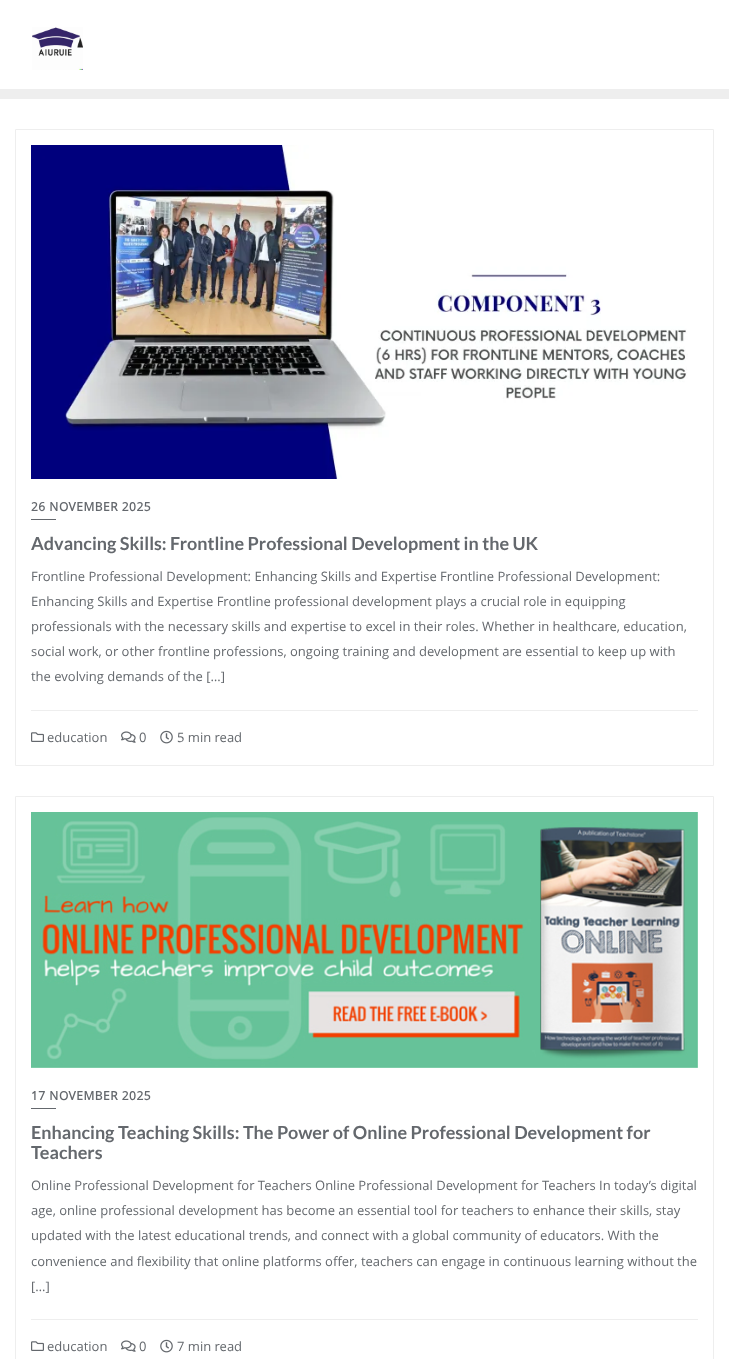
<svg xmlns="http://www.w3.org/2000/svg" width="729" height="1359">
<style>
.a{font:bold 12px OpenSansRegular;letter-spacing:0.5px;fill:#64686d}
.b{font:bold 18px Lato;fill:#64686d}
.c{font:13px OpenSansRegular;fill:#64686d}
</style>
<rect width="100%" height="100%" fill="#fff"/>
<path fill="#eee" d="M0 89h729v10H0z"/>
<image href="1.png" x="32" y="27" width="51" height="43"/>
<path fill="none" stroke="#eee" d="M15.5 129.5h698v636H15.5z"/>
<image href="2.png" x="31" y="145" width="657" height="334"/>
<path fill="#64686d" d="M31 519h25v1H31z"/>
<path fill="#eee" d="M31 710h667v1H31z"/>
<image href="3.png" x="31" y="732" width="13" height="10"/>
<image href="4.png" x="121" y="731" width="15" height="12"/>
<image href="5.png" x="160" y="730" width="13" height="14"/>
<path fill="none" stroke="#eee" d="M15.5 796.5h698v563H15.5z"/>
<image href="6.png" x="31" y="812" width="667" height="256"/>
<path fill="#64686d" d="M31 1108h25v1H31z"/>
<path fill="#eee" d="M31 1319h667v1H31z"/>
<image href="3.png" x="31" y="1341" width="13" height="10"/>
<image href="4.png" x="121" y="1340" width="15" height="12"/>
<image href="5.png" x="160" y="1339" width="13" height="14"/>
<text class="a" x="31" y="511">26 NOVEMBER 2025</text>
<text class="b" x="31" y="550">Advancing Skills: Frontline Professional Development in the UK</text>
<text class="c" x="31" y="581">Frontline Professional Development: Enhancing Skills and Expertise Frontline Professional Development:</text>
<text class="c" x="31" y="606">Enhancing Skills and Expertise Frontline professional development plays a crucial role in equipping</text>
<text class="c" x="31" y="631">professionals with the necessary skills and expertise to excel in their roles. Whether in healthcare, education,</text>
<text class="c" x="31" y="656">social work, or other frontline professions, ongoing training and development are essential to keep up with</text>
<text class="c" x="31" y="681">the evolving demands of the […]</text>
<text class="c" x="47" y="742">education</text>
<text class="c" x="139" y="742">0</text>
<text class="c" x="177" y="742">5 min read</text>
<text class="a" x="31" y="1100">17 NOVEMBER 2025</text>
<text class="b" x="31" y="1139">Enhancing Teaching Skills: The Power of Online Professional Development for</text>
<text class="b" x="31" y="1159">Teachers</text>
<text class="c" x="31" y="1190">Online Professional Development for Teachers Online Professional Development for Teachers In today’s digital</text>
<text class="c" x="31" y="1215">age, online professional development has become an essential tool for teachers to enhance their skills, stay</text>
<text class="c" x="31" y="1240">updated with the latest educational trends, and connect with a global community of educators. With the</text>
<text class="c" x="31" y="1266">convenience and flexibility that online platforms offer, teachers can engage in continuous learning without the</text>
<text class="c" x="31" y="1291">[…]</text>
<text class="c" x="47" y="1351">education</text>
<text class="c" x="139" y="1351">0</text>
<text class="c" x="177" y="1351">7 min read</text>
</svg>
